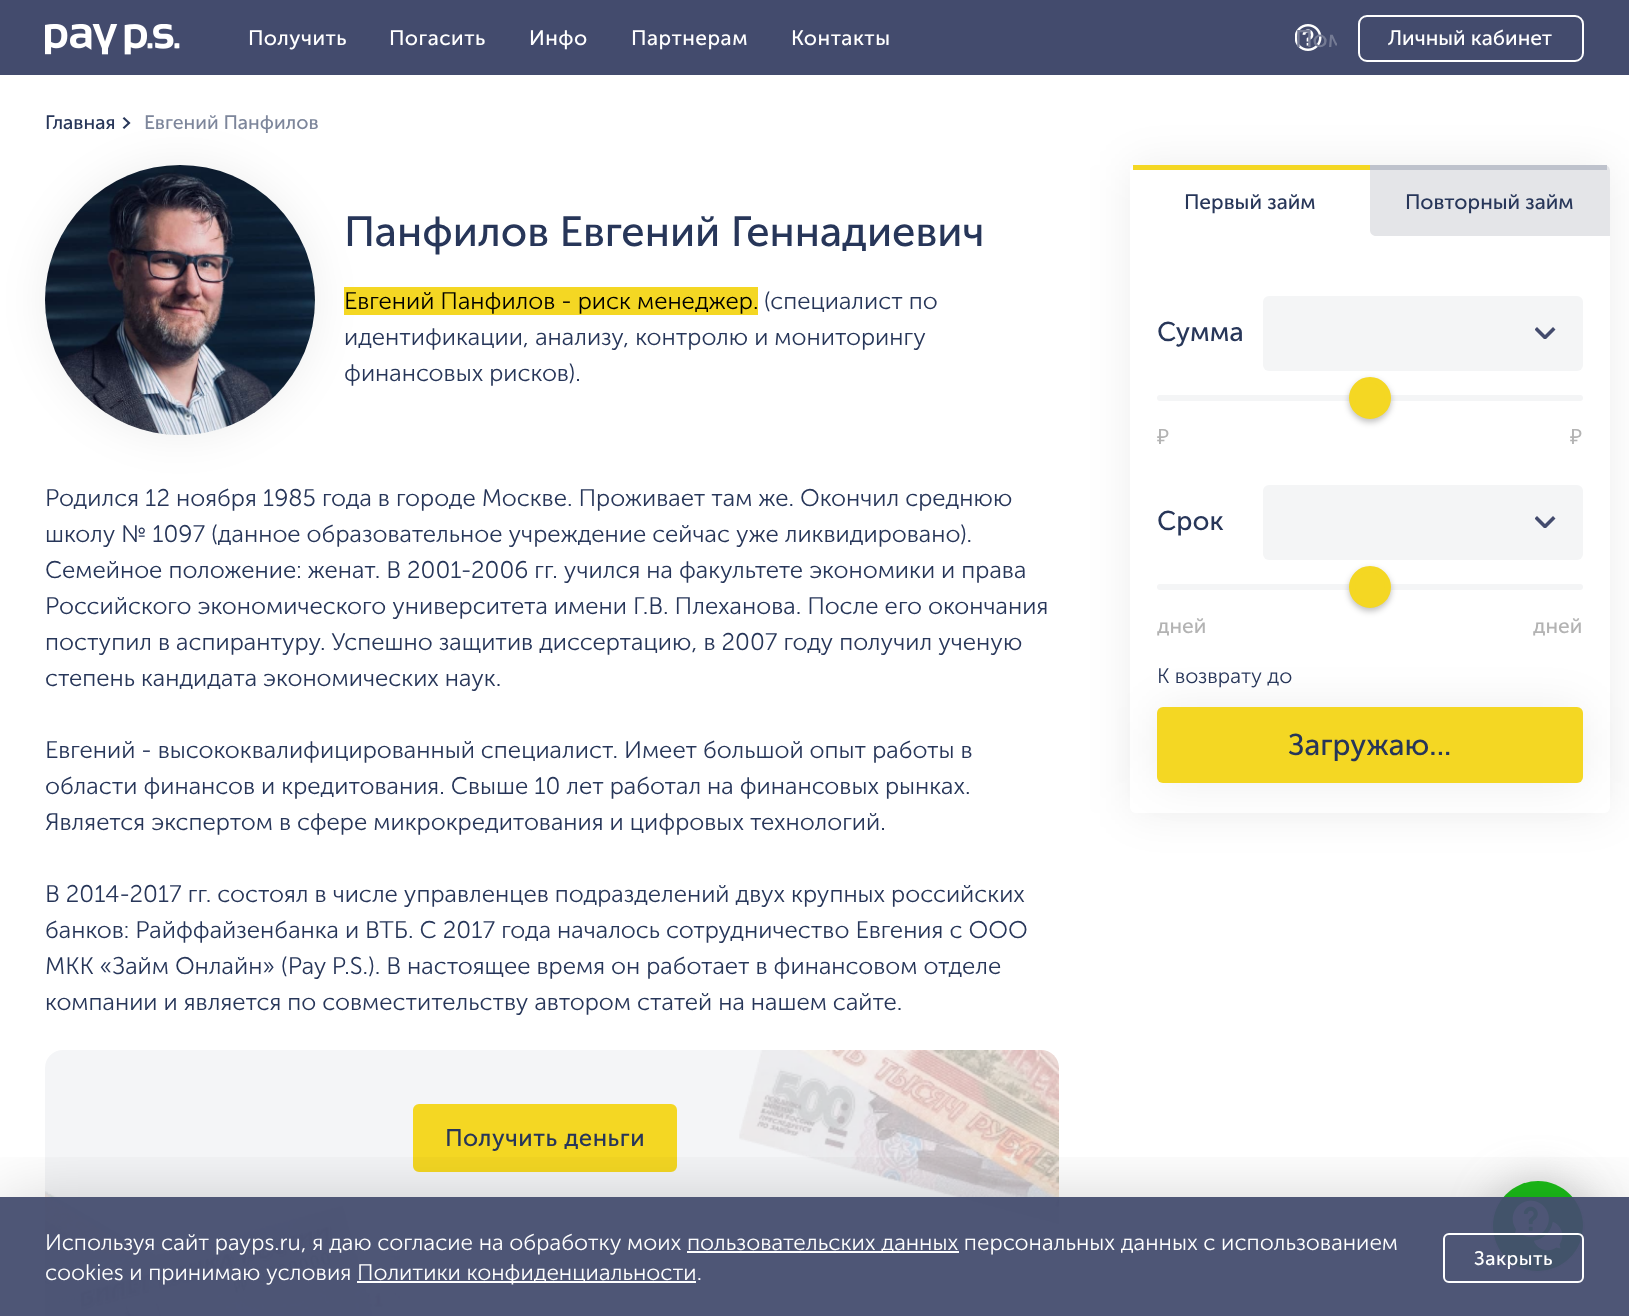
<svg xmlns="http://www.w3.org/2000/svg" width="1629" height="1316">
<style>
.a{font:21px 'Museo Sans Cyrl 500';letter-spacing:0.5px;fill:#fff}
.b{font:24px 'Museo Sans Cyrl 500';fill:#757b94}
.c{font:21px 'Museo Sans Cyrl 500';fill:#fff}
.d{font:19.5px 'Museo Sans Cyrl 500';fill:#273659}
.e{font:19.5px 'Museo Sans Cyrl 500';fill:#7d869b}
.f{font:42px 'Museo Sans Cyrl 500';fill:#273659}
.g{font:300 24px 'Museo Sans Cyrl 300';fill:#000}
.h{font:300 24px 'Museo Sans Cyrl 300';fill:#273659}
.i{font:21px 'Museo Sans Cyrl 500';fill:#273659}
.j{font:27px 'Museo Sans Cyrl 500';fill:#273659}
.k{font:21px Noto Sans;fill:#b3b3b3}
.l{font:21px 'Museo Sans Cyrl 500';fill:#b3b3b3}
.m{font:300 21px 'Museo Sans Cyrl 300';fill:#273659}
.n{font:30px 'Museo Sans Cyrl 500';fill:#273659}
.o{font:24px 'Museo Sans Cyrl 500';letter-spacing:0.5px;fill:#273659}
.p{font:300 22.5px 'Museo Sans Cyrl 300';fill:#fff}
.q{font:19.5px 'Museo Sans Cyrl 500';letter-spacing:0.5px;fill:#fff}
</style>
<defs>
<clipPath id="clip1"><path d="M1535 327h21v12H1535z"/></clipPath>
<clipPath id="clip2"><path d="M1535 516h21v12H1535z"/></clipPath>
<clipPath id="clip3"><path d="M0 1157h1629v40H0z"/></clipPath>
<clipPath id="clip4"><path d="M1280 9h57v57H1280z"/></clipPath>
</defs>
<rect width="100%" height="100%" fill="#fff"/>
<path fill="#434b6d" d="M0 0h1629v75H0z"/>
<image href="1.png" x="45" y="24" width="135" height="31"/>
<image href="2.png" x="1295" y="24" width="27" height="27"/>
<rect fill="none" stroke="#fff" stroke-width="2" x="1359" y="16" width="224" height="45" rx="8"/>
<rect fill="#00000012" filter="blur(22.5px)" x="45" y="165" width="270" height="270" rx="135"/>
<image href="3.png" x="122" y="117" width="9" height="12"/>
<image href="4.png" x="45" y="165" width="270" height="270"/>
<path fill="#f4d723" d="M344 287h414v28H344z"/>
<rect fill="#00000012" filter="blur(22.5px)" x="1130" y="165" width="480" height="648" rx="6"/>
<rect fill="#fff" x="1130" y="165" width="480" height="648" rx="6"/>
<path fill="#f4d723" d="M1133 165h237v5H1133z"/>
<path fill="#e4e5e8" d="M1370 165h234c3.5 0 6 2.5 6 6v65h-234c-3.5 0-6-2.5-6-6z"/>
<path fill="#bec2cc" d="M1370 165h237v5H1370z"/>
<rect fill="#f4f5f6" x="1263" y="296" width="320" height="75" rx="6"/>
<g clip-path="url(#clip1)">
<path fill="#434b6d" d="M1553 327l-8 8l-8-8l-2.5 2.5l10.5 10.5l10.5-10.5z"/>
</g>
<rect fill="#f4f5f6" x="1157" y="395" width="426" height="6" rx="3"/>
<rect fill="#00000040" filter="blur(3px)" x="1349" y="380" width="42" height="42" rx="21"/>
<circle fill="#f4d723" stroke="#f4d723" stroke-width="6" cx="1370" cy="398" r="18"/>
<rect fill="#f4f5f6" x="1263" y="485" width="320" height="75" rx="6"/>
<g clip-path="url(#clip2)">
<path fill="#434b6d" d="M1553 516l-8 8l-8-8l-2.5 2.5l10.5 10.5l10.5-10.5z"/>
</g>
<rect fill="#f4f5f6" x="1157" y="584" width="426" height="6" rx="3"/>
<rect fill="#00000040" filter="blur(3px)" x="1349" y="569" width="42" height="42" rx="21"/>
<circle fill="#f4d723" stroke="#f4d723" stroke-width="6" cx="1370" cy="587" r="18"/>
<rect fill="#00000012" filter="blur(22.5px)" x="1157" y="707" width="426" height="76" rx="6"/>
<rect fill="#f4d723" x="1157" y="707" width="426" height="76" rx="6"/>
<rect fill="#f4f5f7" x="45" y="1050" width="1014" height="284" rx="18"/>
<image href="5.png" x="739" y="1050" width="320" height="174"/>
<rect fill="#f4d723" stroke="#f4d723" stroke-width="2" x="414" y="1105" width="262" height="66" rx="5"/>
<image href="6.png" x="45" y="1191" width="356" height="125"/>
<rect fill="#74747454" filter="blur(22.5px)" x="1493" y="1181" width="90" height="90" rx="45"/>
<circle fill="#1bbd18" cx="1538" cy="1226" r="45"/>
<image href="7.png" x="1512" y="1200" width="51" height="51"/>
<g clip-path="url(#clip3)">
<path fill="#00000033" filter="blur(37.5px)" d="M0 1205h1629v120H0z"/>
</g>
<path fill="#454d6ff2" d="M0 1197h1629v119H0z"/>
<path fill="#fff" d="M687 1251h272v2H687z"/>
<path fill="#fff" d="M357 1281h339v2H357z"/>
<rect fill="none" stroke="#fff" stroke-width="2" x="1444" y="1234" width="139" height="48" rx="5"/>
<text class="a" x="248" y="45">Получить</text>
<text class="a" x="389" y="45">Погасить</text>
<text class="a" x="529" y="45">Инфо</text>
<text class="a" x="631" y="45">Партнерам</text>
<text class="a" x="791" y="45">Контакты</text>
<g clip-path="url(#clip4)">
<text class="b" x="1295" y="47">Пом</text>
</g>
<text class="c" x="1388" y="45">Личный кабинет</text>
<text class="d" x="45" y="129">Главная</text>
<text class="e" x="144" y="129">Евгений Панфилов</text>
<text class="f" x="344" y="246">Панфилов Евгений Геннадиевич</text>
<text class="g" x="344" y="309">Евгений Панфилов - риск менеджер.</text>
<text class="h" x="764" y="309">(специалист по</text>
<text class="h" x="344" y="345">идентификации, анализу, контролю и мониторингу</text>
<text class="h" x="344" y="381">финансовых рисков).</text>
<text class="i" x="1184" y="209">Первый займ</text>
<text class="i" x="1405" y="209">Повторный займ</text>
<text class="j" x="1157" y="341">Сумма</text>
<text class="k" x="1157" y="444">₽</text>
<text class="k" x="1570" y="444">₽</text>
<text class="j" x="1157" y="530">Срок</text>
<text class="l" x="1157" y="633">дней</text>
<text class="l" x="1533" y="633">дней</text>
<text class="m" x="1157" y="683">К возврату до</text>
<text class="n" x="1288" y="755">Загружаю...</text>
<text class="h" x="45" y="506">Родился 12 ноября 1985 года в городе Москве. Проживает там же. Окончил среднюю</text>
<text class="h" x="45" y="542">школу № 1097 (данное образовательное учреждение сейчас уже ликвидировано).</text>
<text class="h" x="45" y="578">Семейное положение: женат. В 2001-2006 гг. учился на факультете экономики и права</text>
<text class="h" x="45" y="614">Российского экономического университета имени Г.В. Плеханова. После его окончания</text>
<text class="h" x="45" y="650">поступил в аспирантуру. Успешно защитив диссертацию, в 2007 году получил ученую</text>
<text class="h" x="45" y="686">степень кандидата экономических наук.</text>
<text class="h" x="45" y="758">Евгений - высококвалифицированный специалист. Имеет большой опыт работы в</text>
<text class="h" x="45" y="794">области финансов и кредитования. Свыше 10 лет работал на финансовых рынках.</text>
<text class="h" x="45" y="830">Является экспертом в сфере микрокредитования и цифровых технологий.</text>
<text class="h" x="45" y="902">В 2014-2017 гг. состоял в числе управленцев подразделений двух крупных российских</text>
<text class="h" x="45" y="938">банков: Райффайзенбанка и ВТБ. С 2017 года началось сотрудничество Евгения с ООО</text>
<text class="h" x="45" y="974">МКК «Займ Онлайн» (Pay P.S.). В настоящее время он работает в финансовом отделе</text>
<text class="h" x="45" y="1010">компании и является по совместительству автором статей на нашем сайте.</text>
<text class="o" x="445" y="1146">Получить деньги</text>
<text class="p" x="45" y="1250">Используя сайт payps.ru, я даю согласие на обработку моих</text>
<text class="p" x="687" y="1250">пользовательских данных персональных данных с использованием</text>
<text class="p" x="45" y="1280">cookies и принимаю условия</text>
<text class="p" x="357" y="1280">Политики конфиденциальности.</text>
<text class="q" x="1474" y="1265">Закрыть</text>
</svg>
